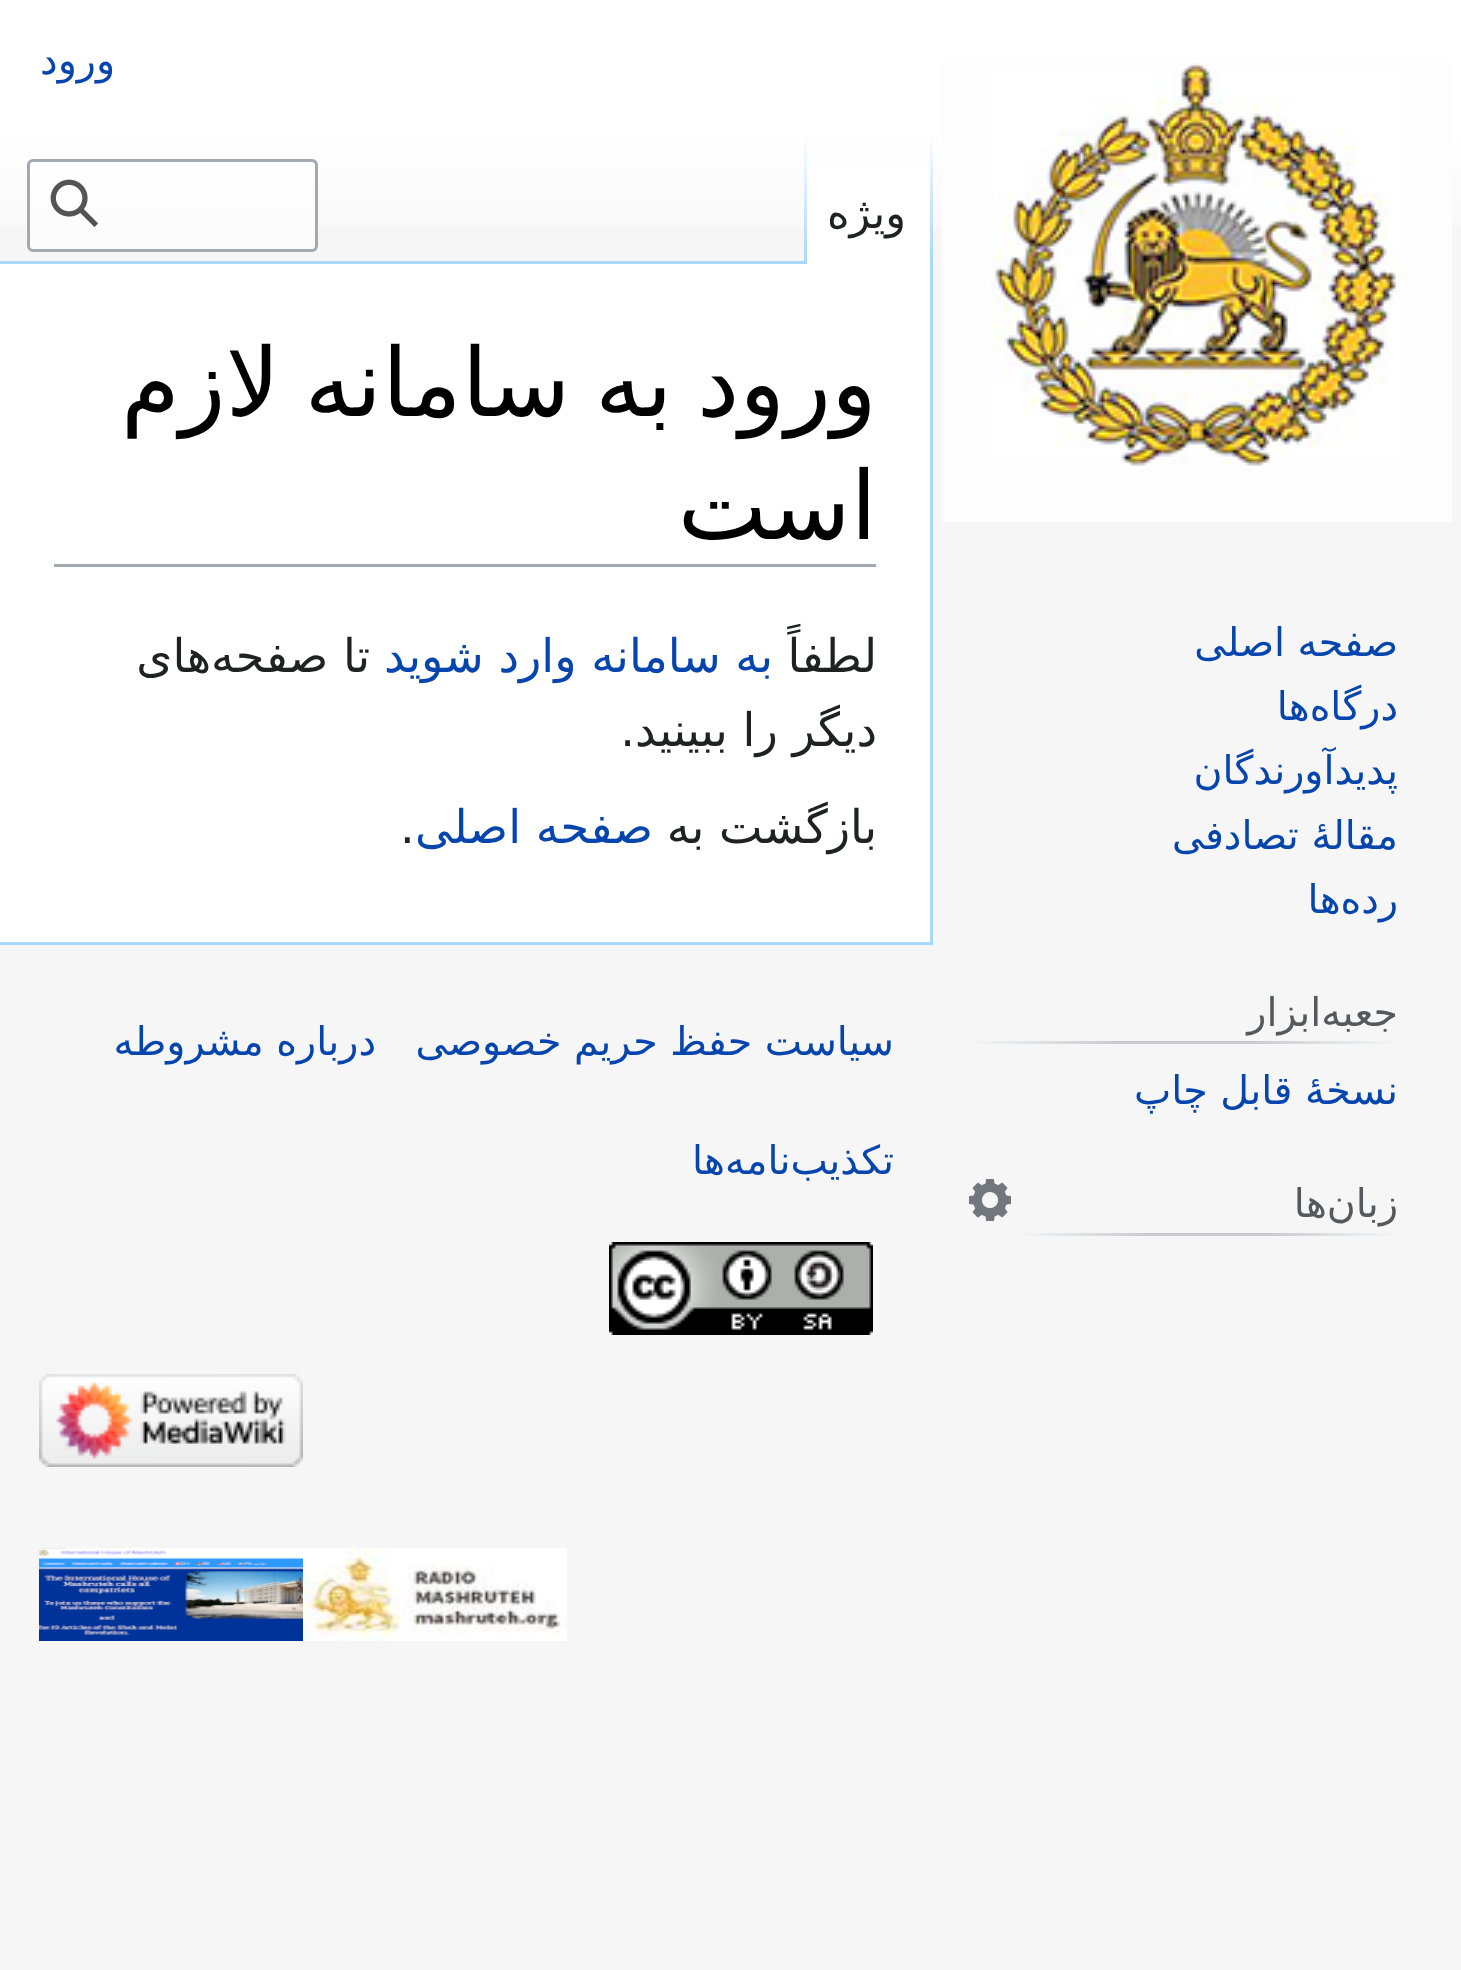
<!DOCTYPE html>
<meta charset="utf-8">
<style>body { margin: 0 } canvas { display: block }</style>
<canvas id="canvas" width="1461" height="1970"></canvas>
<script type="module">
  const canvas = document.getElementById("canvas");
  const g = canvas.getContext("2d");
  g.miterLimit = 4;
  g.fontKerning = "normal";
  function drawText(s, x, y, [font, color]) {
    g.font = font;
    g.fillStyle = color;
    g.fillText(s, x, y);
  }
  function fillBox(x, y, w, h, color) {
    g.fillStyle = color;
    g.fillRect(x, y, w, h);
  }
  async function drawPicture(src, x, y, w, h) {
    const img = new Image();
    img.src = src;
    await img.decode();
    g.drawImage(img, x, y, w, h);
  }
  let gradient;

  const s1 = ["39.6px DejaVu Sans", "#0645AD"];
  const s2 = ["43px DejaVu Sans", "#202122"];
  const s3 = ["39.6px DejaVu Sans", "#54595D"];
  const s4 = ["95px DejaVu Sans", "#000000"];
  const s5 = ["46.25px DejaVu Sans", "#202122"];
  const s6 = ["46.25px DejaVu Sans", "#0645AD"];

  fillBox(0, 0, 1461, 1970, "#F6F6F6");
  gradient = g.createLinearGradient(731, 0, 731, 264);
  gradient.addColorStop(0.5, "#FFFFFF");
  gradient.addColorStop(1, "#F6F6F6");
  g.fillStyle = gradient;
  g.fillRect(0, 0, 1461, 227);
  g.direction = "rtl";
  drawText("ورود", 115, 74, s1);
  fillBox(930, 261, 3, 684, "#A7D7F9");
  gradient = g.createLinearGradient(932, 132, 932, 264);
  gradient.addColorStop(0, "rgba(167, 215, 249, 0)");
  gradient.addColorStop(1, "#A7D7F9");
  g.fillStyle = gradient;
  g.fillRect(930, 132, 3, 132);
  fillBox(807, 169, 123, 95, "#FFFFFF");
  gradient = g.createLinearGradient(806, 132, 806, 264);
  gradient.addColorStop(0, "#FFFFFF");
  gradient.addColorStop(1, "#A7D7F9");
  g.fillStyle = gradient;
  g.fillRect(804, 132, 3, 132);
  drawText("ویژه", 906, 228, s2);
  g.fillStyle = "rgba(255, 255, 255, 0.5)";
  g.beginPath();
  g.roundRect(28.5, 160.5, 288, 90, 4.5);
  g.fill();
  g.strokeStyle = "#A2A9B1";
  g.lineWidth = 3;
  g.stroke();
  await drawPicture("pic1.png", 50, 179, 48, 48);
  await drawPicture("pic2.png", 942, 62, 510, 460);
  drawText("صفحه اصلی", 1398, 656, s1);
  drawText("درگاه‌ها", 1398, 720, s1);
  drawText("پدیدآورندگان", 1398, 784, s1);
  drawText("مقالهٔ تصادفی", 1398, 849, s1);
  drawText("رده‌ها", 1398, 913, s1);
  gradient = g.createLinearGradient(1398, 1043, 966, 1043);
  gradient.addColorStop(0, "#F6F6F6");
  gradient.addColorStop(0.33, "#C8CCD1");
  gradient.addColorStop(0.66, "#C8CCD1");
  gradient.addColorStop(1, "#F6F6F6");
  g.fillStyle = gradient;
  g.fillRect(966, 1041, 432, 3);
  drawText("جعبه‌ابزار", 1398, 1026, s3);
  drawText("نسخهٔ قابل چاپ", 1398, 1104, s1);
  gradient = g.createLinearGradient(1398, 1235, 1014, 1235);
  gradient.addColorStop(0, "#F6F6F6");
  gradient.addColorStop(0.33, "#C8CCD1");
  gradient.addColorStop(0.66, "#C8CCD1");
  gradient.addColorStop(1, "#F6F6F6");
  g.fillStyle = gradient;
  g.fillRect(1014, 1233, 384, 3);
  drawText("زبان‌ها", 1398, 1217, s3);
  await drawPicture("pic3.png", 969, 1179, 42, 42);
  fillBox(0, 264, 930, 678, "#FFFFFF");
  fillBox(0, 261, 804, 3, "#A7D7F9");
  fillBox(0, 942, 933, 3, "#A7D7F9");
  fillBox(54, 564, 822, 3, "#A2A9B1");
  g.wordSpacing = "-5.5px";
  drawText("ورود به سامانه لازم", 877, 416, s4);
  g.wordSpacing = "0px";
  drawText("است", 877, 539, s4);
  drawText("لطفاً", 877, 672, s5);
  drawText("به سامانه وارد شوید", 773, 672, s6);
  drawText("تا صفحه‌های", 370, 672, s5);
  drawText("دیگر را ببینید.", 877, 746, s5);
  drawText("بازگشت به", 877, 843, s5);
  drawText("صفحه اصلی", 653, 843, s6);
  g.direction = "ltr";
  drawText(".", 400, 843, s5);
  g.direction = "rtl";
  drawText("سیاست حفظ حریم خصوصی", 894, 1055, s1);
  drawText("درباره مشروطه", 376, 1055, s1);
  drawText("تکذیب‌نامه‌ها", 894, 1174, s1);
  await drawPicture("pic4.png", 609, 1242, 264, 93);
  await drawPicture("pic5.png", 39, 1374, 264, 93);
  await drawPicture("pic6.png", 303, 1548, 264, 93);
  await drawPicture("pic7.png", 39, 1548, 264, 93);
</script>
